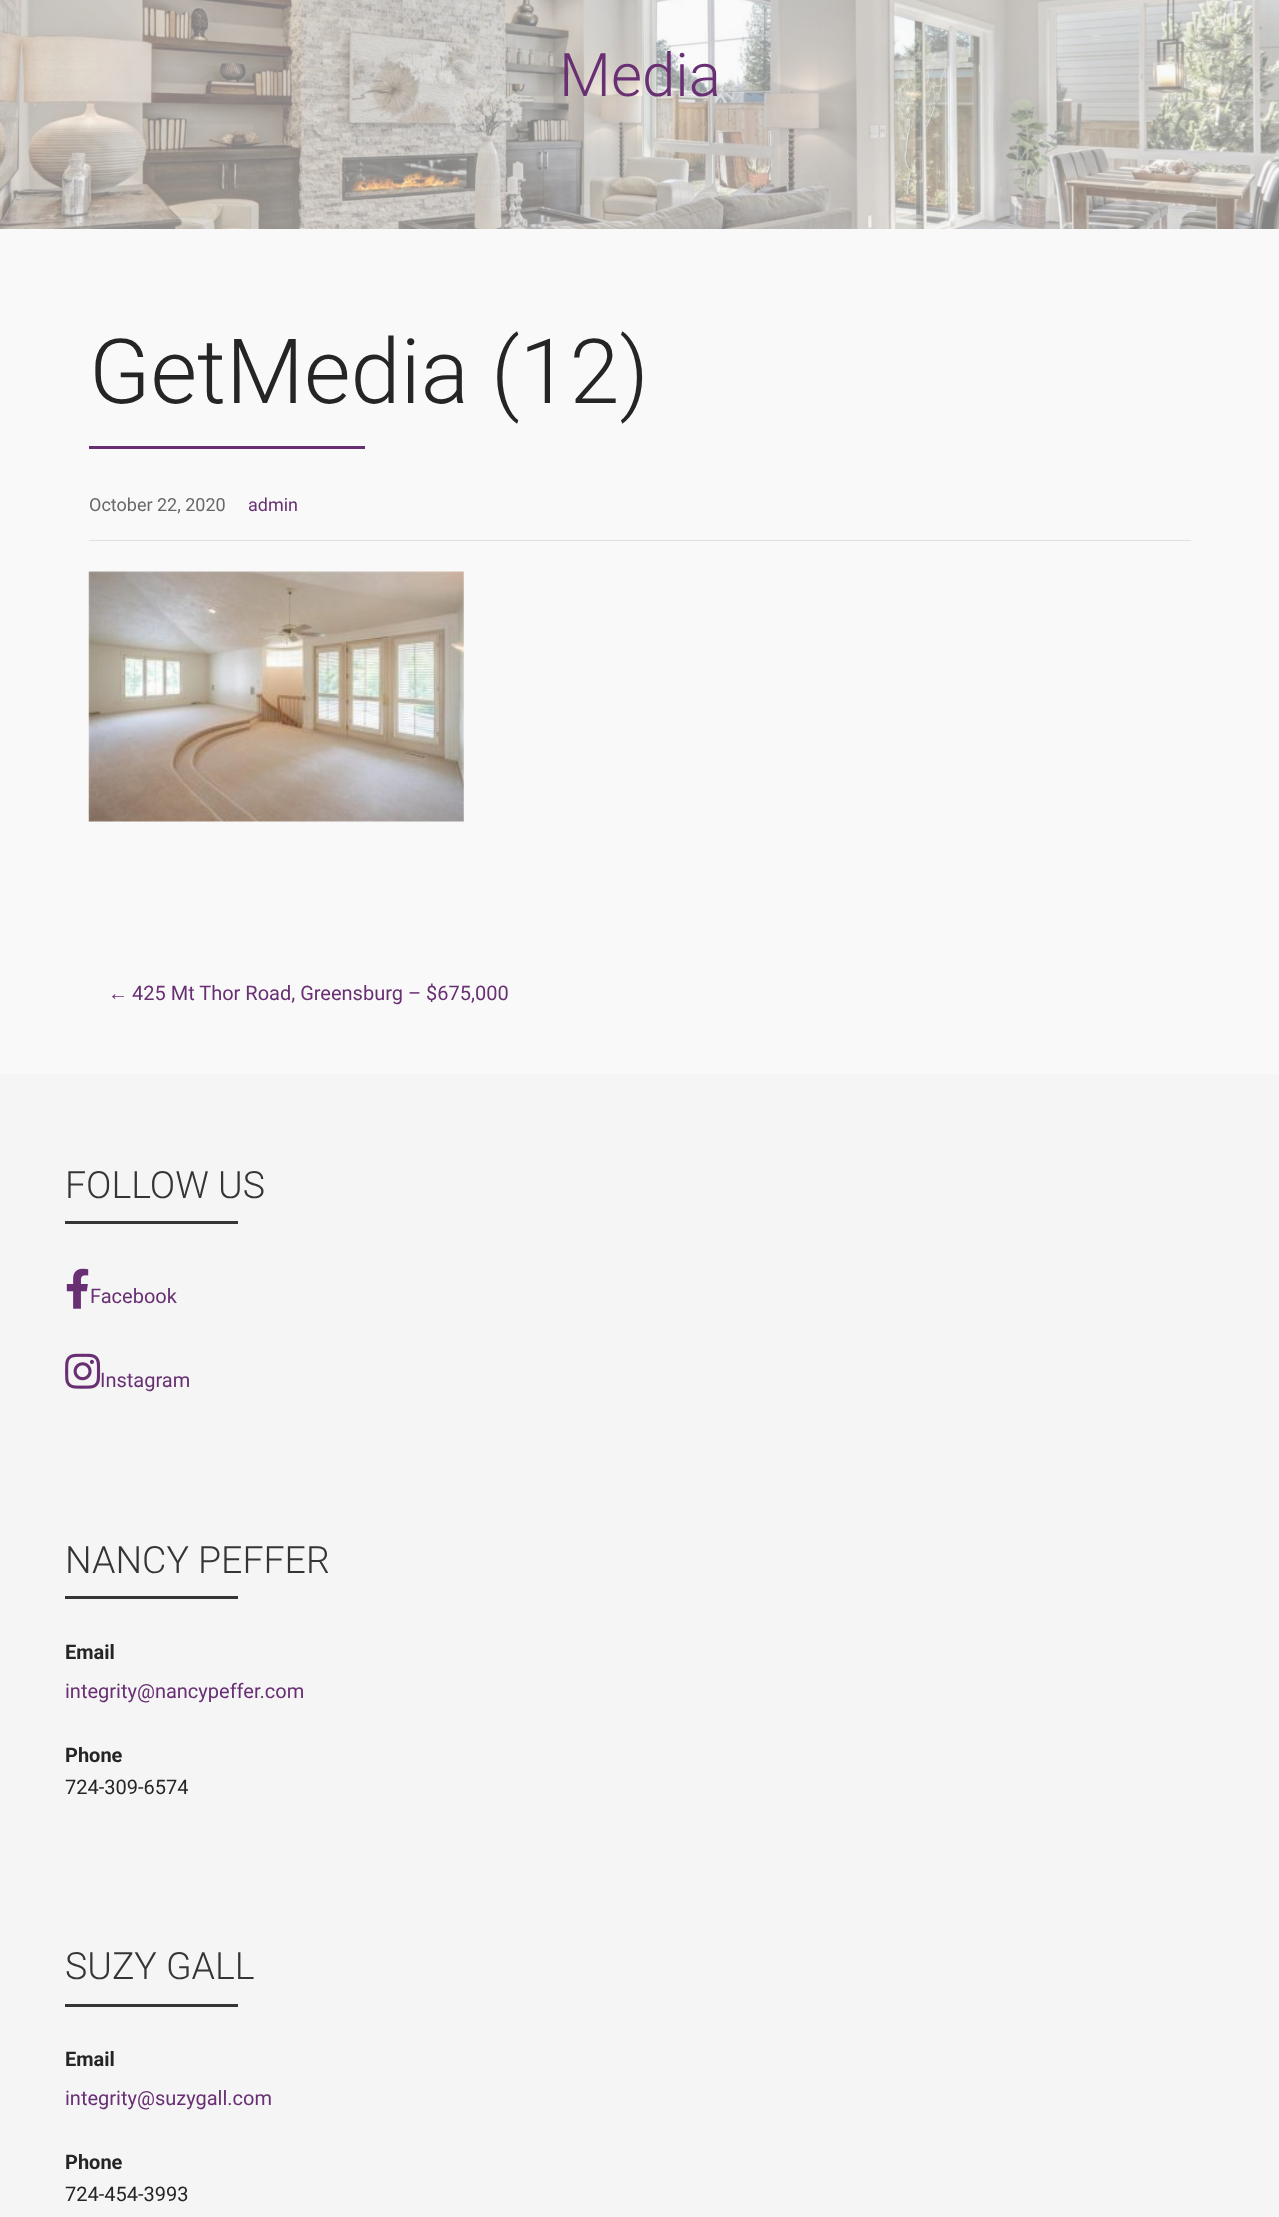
<!DOCTYPE html>
<meta charset="utf-8">
<style>body { margin: 0 } canvas { display: block }</style>
<canvas id="canvas" width="1279" height="2217"></canvas>
<script type="module">
  const canvas = document.getElementById("canvas");
  const g = canvas.getContext("2d");
  g.miterLimit = 4;
  g.fontKerning = "normal";
  function drawText(s, x, y, [font, color]) {
    g.font = font;
    g.fillStyle = color;
    g.fillText(s, x, y);
  }
  function fillBox(x, y, w, h, color) {
    g.fillStyle = color;
    g.fillRect(x, y, w, h);
  }
  async function drawPicture(src, x, y, w, h) {
    const img = new Image();
    img.src = src;
    await img.decode();
    g.drawImage(img, x, y, w, h);
  }

  const s1 = ["300 60px Roboto", "#682F73"];
  const s2 = ["300 90px Roboto", "#252525"];
  const s3 = ["18px Roboto", "#686868"];
  const s4 = ["18px Roboto", "#682F73"];
  const s5 = ["20px Liberation Sans", "#682F73"];
  const s6 = ["20px Roboto", "#682F73"];
  const s7 = ["300 37.5px Roboto", "#353535"];
  const s8 = ["bold 20px Roboto", "#252525"];
  const s9 = ["20px Roboto", "#252525"];

  fillBox(0, 0, 1279, 2217, "#F9F9F9");
  await drawPicture("pic1.png", 0, 0, 1279, 229);
  drawText("Media", 559, 96, s1);
  drawText("GetMedia (12)", 89, 403, s2);
  fillBox(89, 446, 276, 3, "#682F73");
  fillBox(89, 540, 1102, 1, "#E0E0E0");
  drawText("October 22, 2020", 89, 511, s3);
  drawText("admin", 248, 511, s4);
  await drawPicture("pic2.png", 88, 571, 376, 251);
  drawText("←", 108, 1000, s5);
  drawText("425 Mt Thor Road, Greensburg – $675,000", 132, 1000, s6);
  fillBox(0, 1074, 1279, 1143, "#F5F5F5");
  drawText("FOLLOW US", 65, 1198, s7);
  fillBox(65, 1221, 173, 3, "#353535");
  await drawPicture("pic3.png", 66, 1268, 23, 41);
  drawText("Facebook", 90, 1303, s6);
  await drawPicture("pic4.png", 65, 1353, 36, 36);
  drawText("Instagram", 100, 1387, s6);
  drawText("NANCY PEFFER", 65, 1573, s7);
  fillBox(65, 1596, 173, 3, "#353535");
  drawText("Email", 65, 1659, s8);
  drawText("integrity@nancypeffer.com", 65, 1698, s6);
  drawText("Phone", 65, 1762, s8);
  drawText("724-309-6574", 65, 1794, s9);
  drawText("SUZY GALL", 65, 1979, s7);
  fillBox(65, 2004, 173, 3, "#353535");
  drawText("Email", 65, 2066, s8);
  drawText("integrity@suzygall.com", 65, 2105, s6);
  drawText("Phone", 65, 2169, s8);
  drawText("724-454-3993", 65, 2201, s9);
</script>
